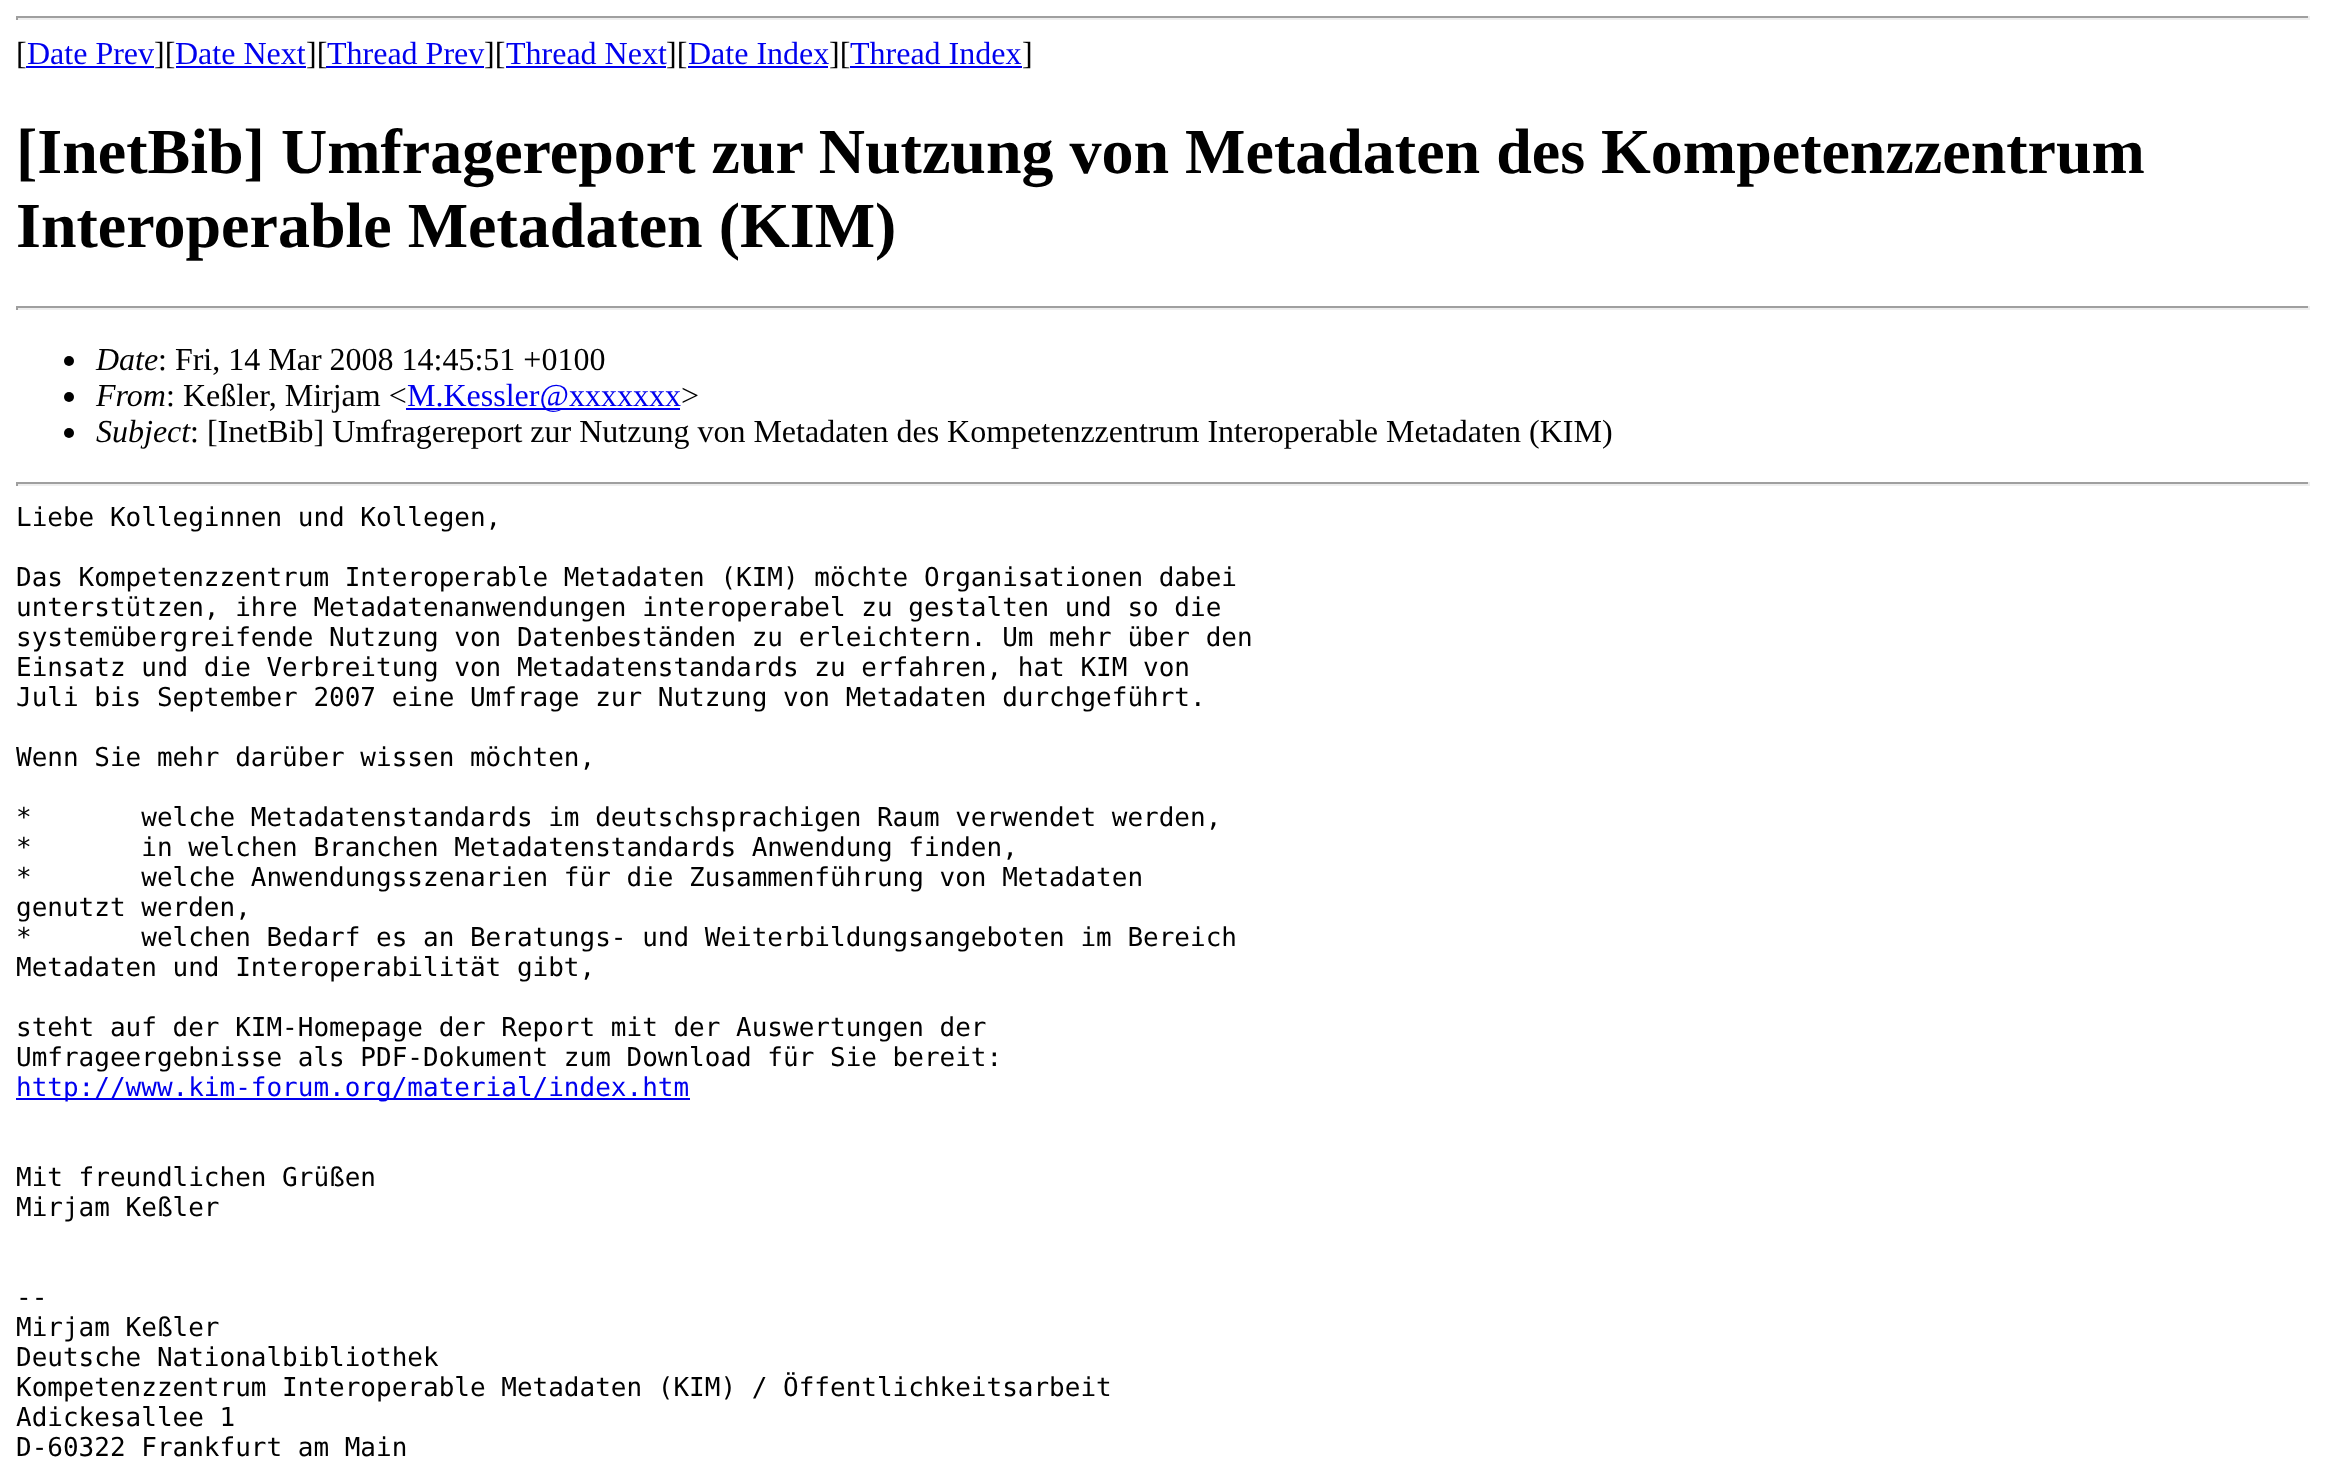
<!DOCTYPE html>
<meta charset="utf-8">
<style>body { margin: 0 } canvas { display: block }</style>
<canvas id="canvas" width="2325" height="1478"></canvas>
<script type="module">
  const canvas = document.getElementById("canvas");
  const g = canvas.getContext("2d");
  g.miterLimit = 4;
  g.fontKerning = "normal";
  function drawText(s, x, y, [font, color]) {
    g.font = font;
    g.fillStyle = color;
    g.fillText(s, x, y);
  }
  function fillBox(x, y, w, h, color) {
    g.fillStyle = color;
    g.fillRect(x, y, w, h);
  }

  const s1 = ["32px Liberation Serif", "#000000"];
  const s2 = ["32px Liberation Serif", "#0000EE"];
  const s3 = ["bold 64px Liberation Serif", "#000000"];
  const s4 = ["italic 32px Liberation Serif", "#000000"];
  const s5 = ["26px DejaVu Sans Mono", "#000000"];
  const s6 = ["26px DejaVu Sans Mono", "#0000EE"];

  fillBox(0, 0, 2325, 1478, "#FFFFFF");
  fillBox(16, 16, 2294, 2, "#9F9F9F");
  fillBox(2308, 16, 2, 4, "#EEEEEE");
  fillBox(16, 18, 2294, 2, "#EEEEEE");
  fillBox(16, 16, 2, 4, "#9F9F9F");
  drawText("[", 16, 64, s1);
  drawText("Date Prev", 27, 64, s2);
  fillBox(26, 66, 128, 2, "#0000EE");
  drawText("][", 154, 64, s1);
  drawText("Date Next", 175, 64, s2);
  fillBox(176, 66, 130, 2, "#0000EE");
  drawText("][", 306, 64, s1);
  drawText("Thread Prev", 327, 64, s2);
  fillBox(326, 66, 158, 2, "#0000EE");
  drawText("][", 484, 64, s1);
  drawText("Thread Next", 506, 64, s2);
  fillBox(506, 66, 160, 2, "#0000EE");
  drawText("][", 666, 64, s1);
  drawText("Date Index", 688, 64, s2);
  fillBox(688, 66, 140, 2, "#0000EE");
  drawText("][", 829, 64, s1);
  drawText("Thread Index", 850, 64, s2);
  fillBox(850, 66, 172, 2, "#0000EE");
  drawText("]", 1022, 64, s1);
  drawText("[InetBib] Umfragereport zur Nutzung von Metadaten des Kompetenzzentrum", 16, 173, s3);
  drawText("Interoperable Metadaten (KIM)", 16, 247, s3);
  fillBox(16, 306, 2294, 2, "#9F9F9F");
  fillBox(2308, 306, 2, 4, "#EEEEEE");
  fillBox(16, 308, 2294, 2, "#EEEEEE");
  fillBox(16, 306, 2, 4, "#9F9F9F");
  g.fillStyle = "#000000";
  g.beginPath();
  g.arc(69, 361, 5, 0, Math.PI * 2);
  g.fill();
  drawText("Date", 96, 370, s4);
  drawText(": Fri, 14 Mar 2008 14:45:51 +0100", 158, 370, s1);
  g.beginPath();
  g.arc(69, 397, 5, 0, Math.PI * 2);
  g.fill();
  drawText("From", 96, 406, s4);
  drawText(": Keßler, Mirjam <", 166, 406, s1);
  fillBox(406, 408, 274, 2, "#0000EE");
  drawText("M.Kessler@xxxxxxx", 407, 406, s2);
  drawText(">", 681, 406, s1);
  g.beginPath();
  g.arc(69, 433, 5, 0, Math.PI * 2);
  g.fill();
  drawText("Subject", 96, 442, s4);
  drawText(": [InetBib] Umfragereport zur Nutzung von Metadaten des Kompetenzzentrum Interoperable Metadaten (KIM)", 190, 442, s1);
  fillBox(16, 482, 2294, 2, "#9F9F9F");
  fillBox(2308, 482, 2, 4, "#EEEEEE");
  fillBox(16, 484, 2294, 2, "#EEEEEE");
  fillBox(16, 482, 2, 4, "#9F9F9F");
  drawText("Liebe Kolleginnen und Kollegen,", 16, 526, s5);
  drawText("Das Kompetenzzentrum Interoperable Metadaten (KIM) möchte Organisationen dabei", 16, 586, s5);
  drawText("unterstützen, ihre Metadatenanwendungen interoperabel zu gestalten und so die", 16, 616, s5);
  drawText("systemübergreifende Nutzung von Datenbeständen zu erleichtern. Um mehr über den", 16, 646, s5);
  drawText("Einsatz und die Verbreitung von Metadatenstandards zu erfahren, hat KIM von", 16, 676, s5);
  drawText("Juli bis September 2007 eine Umfrage zur Nutzung von Metadaten durchgeführt.", 16, 706, s5);
  drawText("Wenn Sie mehr darüber wissen möchten,", 16, 766, s5);
  drawText("*       welche Metadatenstandards im deutschsprachigen Raum verwendet werden,", 16, 826, s5);
  drawText("*       in welchen Branchen Metadatenstandards Anwendung finden,", 16, 856, s5);
  drawText("*       welche Anwendungsszenarien für die Zusammenführung von Metadaten", 16, 886, s5);
  drawText("genutzt werden,", 16, 916, s5);
  drawText("*       welchen Bedarf es an Beratungs- und Weiterbildungsangeboten im Bereich", 16, 946, s5);
  drawText("Metadaten und Interoperabilität gibt,", 16, 976, s5);
  drawText("steht auf der KIM-Homepage der Report mit der Auswertungen der", 16, 1036, s5);
  drawText("Umfrageergebnisse als PDF-Dokument zum Download für Sie bereit:", 16, 1066, s5);
  fillBox(16, 1098, 674, 2, "#0000EE");
  drawText("http://www.kim-forum.org/material/index.htm", 16, 1096, s6);
  drawText("Mit freundlichen Grüßen", 16, 1186, s5);
  drawText("Mirjam Keßler", 16, 1216, s5);
  drawText("--", 16, 1306, s5);
  drawText("Mirjam Keßler", 16, 1336, s5);
  drawText("Deutsche Nationalbibliothek", 16, 1366, s5);
  drawText("Kompetenzzentrum Interoperable Metadaten (KIM) / Öffentlichkeitsarbeit", 16, 1396, s5);
  drawText("Adickesallee 1", 16, 1426, s5);
  drawText("D-60322 Frankfurt am Main", 16, 1456, s5);
</script>
